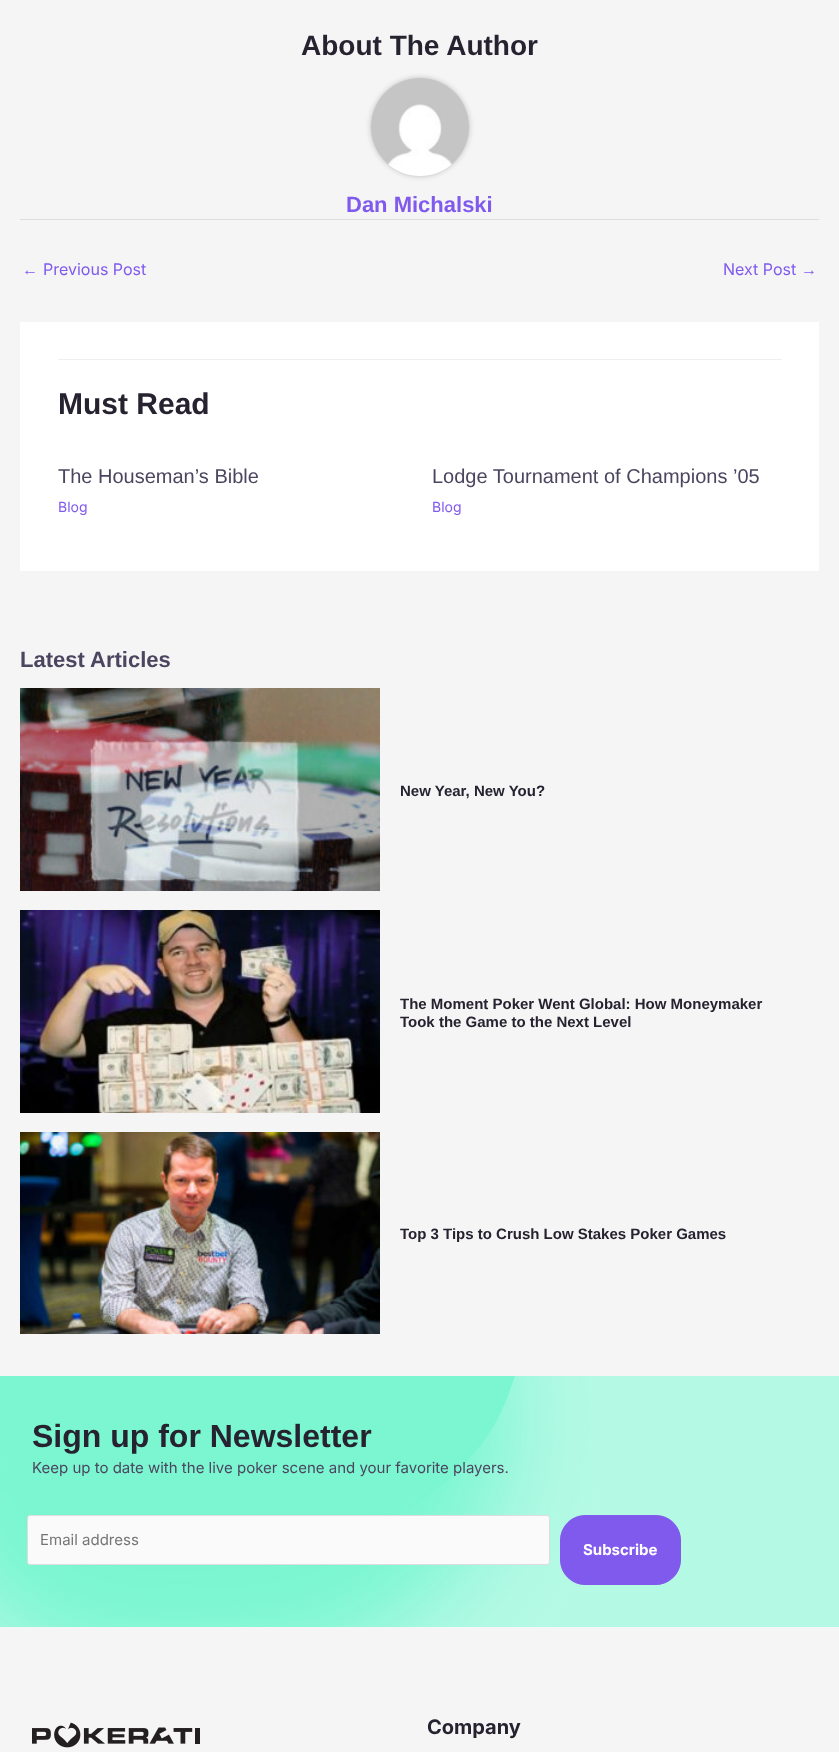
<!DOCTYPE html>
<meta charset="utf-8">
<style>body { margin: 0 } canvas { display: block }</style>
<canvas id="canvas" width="839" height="1752"></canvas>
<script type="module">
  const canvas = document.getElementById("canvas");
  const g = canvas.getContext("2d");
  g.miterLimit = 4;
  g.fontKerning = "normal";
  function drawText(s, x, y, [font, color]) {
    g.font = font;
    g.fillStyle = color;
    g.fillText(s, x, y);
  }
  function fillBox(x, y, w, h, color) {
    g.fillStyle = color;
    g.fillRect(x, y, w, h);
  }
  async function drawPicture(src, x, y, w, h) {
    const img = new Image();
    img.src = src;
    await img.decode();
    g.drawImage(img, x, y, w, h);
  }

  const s1 = ["bold 28px Liberation Sans", "#26222F"];
  const s2 = ["bold 22px Liberation Sans", "#805AED"];
  const s3 = ["16px Liberation Sans", "#805AED"];
  const s4 = ["16px Inter", "#805AED"];
  const s5 = ["bold 30px Liberation Sans", "#26222F"];
  const s6 = ["20px Liberation Sans", "#4C455F"];
  const s7 = ["14px Inter", "#805AED"];
  const s8 = ["bold 22px Liberation Sans", "#4C455F"];
  const s9 = ["bold 15px Liberation Sans", "#26222F"];
  const s10 = ["bold 32px Liberation Sans", "#26222F"];
  const s11 = ["15px Inter", "#4C455F"];
  const s12 = ["15px Inter", "#757575"];
  const s13 = ["bold 15px Inter", "#FFFFFF"];
  const s14 = ["bold 20px Inter", "#26222F"];

  fillBox(0, 0, 839, 1752, "#F5F5F5");
  drawText("About The Author", 301, 55, s1);
  g.fillStyle = "rgba(0, 0, 0, 0.15)";
  g.filter = "blur(2.5px)";
  g.beginPath();
  g.roundRect(370, 77, 100, 100, 50);
  g.fill();
  g.filter = "none";
  g.beginPath();
  g.arc(420, 127, 49.5, 0, Math.PI * 2);
  g.strokeStyle = "#DDDDDD";
  g.stroke();
  await drawPicture("pic1.png", 371, 78, 98, 98);
  drawText("Dan Michalski", 346, 212, s2);
  fillBox(20, 219, 799, 1, "#DDDDDD");
  drawText("←", 22, 275, s3);
  drawText("Previous Post", 43, 275, s4);
  drawText("Next Post", 723, 275, s4);
  drawText("→", 801, 275, s3);
  fillBox(20, 322, 799, 249, "#FFFFFF");
  fillBox(58, 359, 724, 1, "#EEEEEE");
  drawText("Must Read", 58, 414, s5);
  drawText("The Houseman’s Bible", 58, 483, s6);
  drawText("Blog", 58, 512, s7);
  drawText("Lodge Tournament of Champions ’05", 432, 483, s6);
  drawText("Blog", 432, 512, s7);
  drawText("Latest Articles", 20, 667, s8);
  await drawPicture("pic2.png", 20, 688, 360, 203);
  drawText("New Year, New You?", 400, 796, s9);
  await drawPicture("pic3.png", 20, 910, 360, 203);
  drawText("The Moment Poker Went Global: How Moneymaker", 400, 1009, s9);
  drawText("Took the Game to the Next Level", 400, 1027, s9);
  await drawPicture("pic4.png", 20, 1132, 360, 202);
  drawText("Top 3 Tips to Crush Low Stakes Poker Games", 400, 1239, s9);
  await drawPicture("pic5.png", 0, 1376, 839, 251);
  drawText("Sign up for Newsletter", 32, 1447, s10);
  drawText("Keep up to date with the live poker scene and your favorite players.", 32, 1473, s11);
  g.fillStyle = "#FAFAFA";
  g.beginPath();
  g.roundRect(27.5, 1515.5, 522, 49, 2.5);
  g.fill();
  g.stroke();
  drawText("Email address", 40, 1545, s12);
  g.fillStyle = "#805AED";
  g.beginPath();
  g.roundRect(560.5, 1515.5, 120, 69, 24.5);
  g.fill();
  g.strokeStyle = "#805AED";
  g.stroke();
  drawText("Subscribe", 583, 1555, s13);
  await drawPicture("pic6.png", 32, 1722, 168, 26);
  drawText("Company", 427, 1734, s14);
</script>
